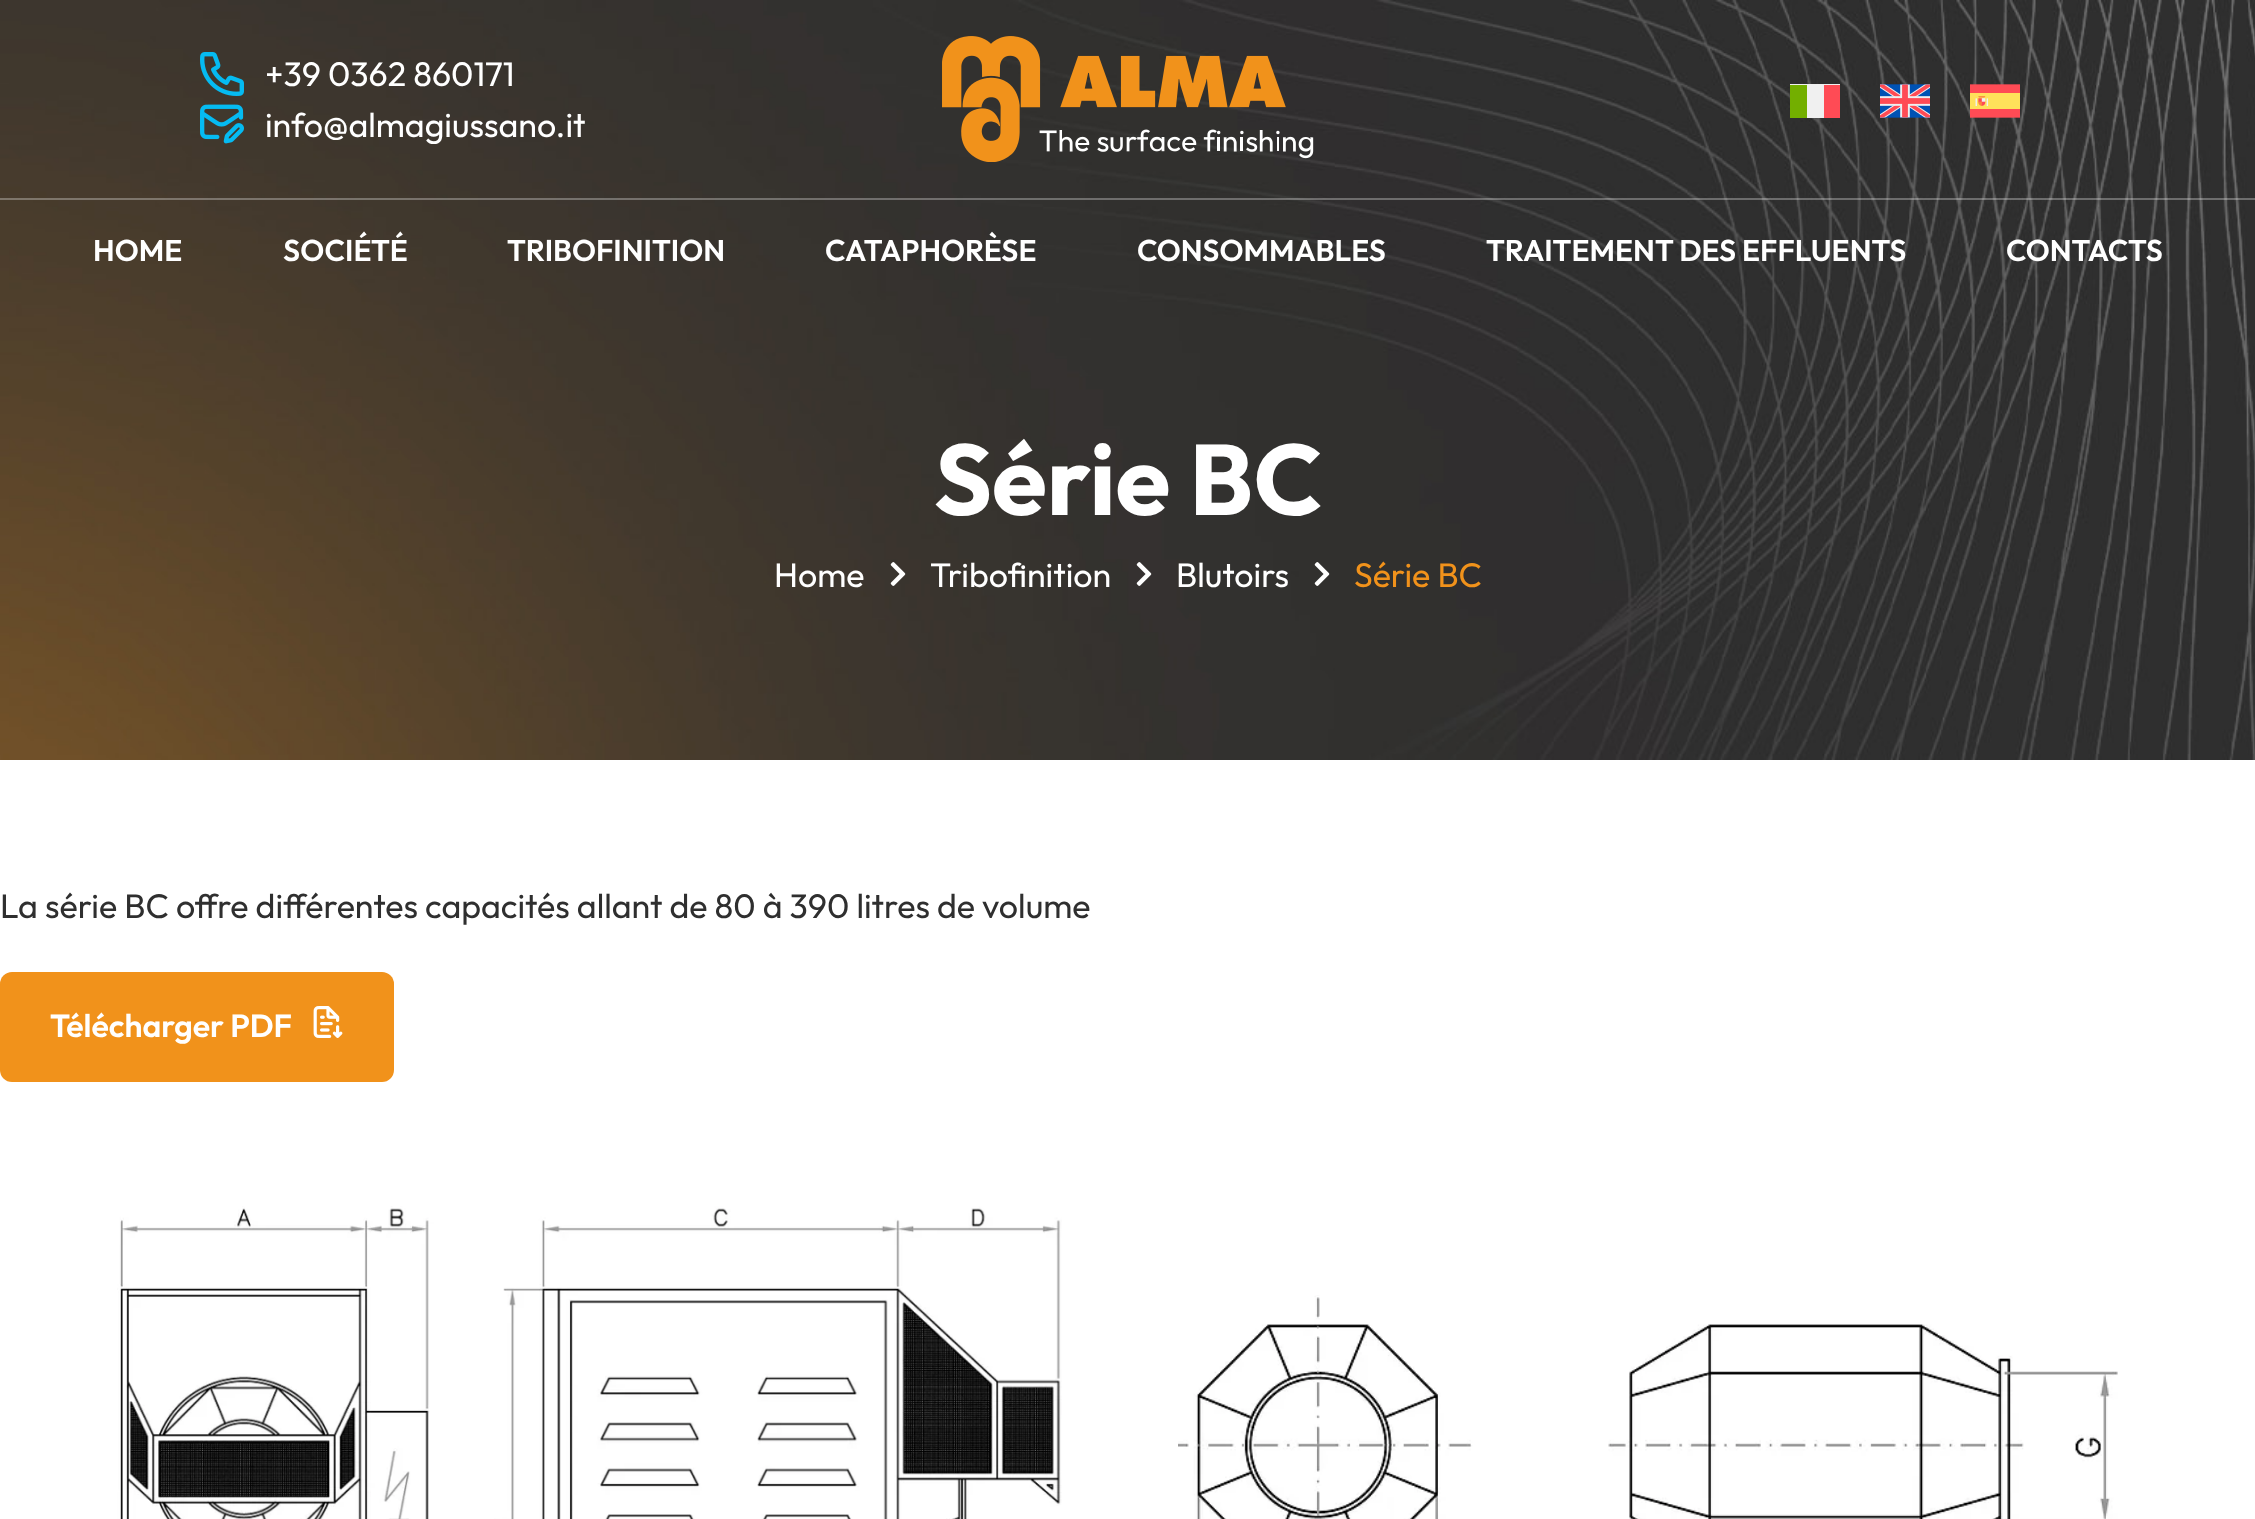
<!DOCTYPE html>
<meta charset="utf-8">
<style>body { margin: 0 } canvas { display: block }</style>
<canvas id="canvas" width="2255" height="1519"></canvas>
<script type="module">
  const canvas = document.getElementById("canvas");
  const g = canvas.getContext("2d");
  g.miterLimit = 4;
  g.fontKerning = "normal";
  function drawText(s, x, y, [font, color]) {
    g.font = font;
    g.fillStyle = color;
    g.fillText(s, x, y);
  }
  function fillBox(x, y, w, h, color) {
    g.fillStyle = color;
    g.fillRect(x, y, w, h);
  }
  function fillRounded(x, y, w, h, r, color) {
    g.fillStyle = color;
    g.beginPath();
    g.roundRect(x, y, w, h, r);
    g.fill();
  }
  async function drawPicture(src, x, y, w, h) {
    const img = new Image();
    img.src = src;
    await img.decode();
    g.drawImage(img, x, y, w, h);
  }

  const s1 = ["34px Outfit", "#FFFFFF"];
  const s2 = ["600 30px Outfit", "#FFFFFF"];
  const s3 = ["bold 100px Outfit", "#FFFFFF"];
  const s4 = ["34px Outfit", "#F1921B"];
  const s5 = ["34px Outfit", "#2F2F2F"];
  const s6 = ["600 32px Outfit", "#FFFFFF"];

  fillBox(0, 0, 2255, 1519, "#FFFFFF");
  await drawPicture("pic6.png", 0, 0, 2255, 760);
  fillBox(0, 198, 2255, 2, "rgba(255, 255, 255, 0.3)");
  await drawPicture("pic1.png", 200, 52, 44, 44);
  drawText("+39 0362 860171", 265, 86, s1);
  await drawPicture("pic2.png", 200, 104, 44, 40);
  drawText("info@almagiussano.it", 265, 137, s1);
  await drawPicture("pic3.png", 942, 36, 372, 126);
  fillBox(1790, 84, 50, 34, "#F0F0F0");
  fillBox(1790, 85, 17, 33, "#73AF00");
  fillBox(1824, 85, 16, 33, "#FF4B55");
  await drawPicture("pic4.png", 1880, 84, 50, 34);
  await drawPicture("pic5.png", 1970, 84, 50, 34);
  drawText("HOME", 93, 261, s2);
  drawText("SOCIÉTÉ", 283, 261, s2);
  drawText("TRIBOFINITION", 507, 261, s2);
  drawText("CATAPHORÈSE", 825, 261, s2);
  drawText("CONSOMMABLES", 1137, 261, s2);
  drawText("TRAITEMENT DES EFFLUENTS", 1486, 261, s2);
  drawText("CONTACTS", 2006, 261, s2);
  drawText("Série BC", 934, 515, s3);
  drawText("Home", 774, 587, s1);
  await drawPicture("pic7.png", 890, 562, 16, 24);
  drawText("Tribofinition", 930, 587, s1);
  await drawPicture("pic8.png", 1136, 562, 16, 24);
  drawText("Blutoirs", 1176, 587, s1);
  await drawPicture("pic9.png", 1314, 562, 16, 24);
  drawText("Série BC", 1354, 587, s4);
  drawText("La série BC offre différentes capacités allant de 80 à 390 litres de volume", 0, 918, s5);
  fillRounded(0, 972, 394, 110, 12, "#F1921B");
  drawText("Télécharger PDF", 50, 1037, s6);
  await drawPicture("pic10.png", 313, 1006, 30, 32);
  await drawPicture("pic11.png", 117, 1206, 945, 313);
  await drawPicture("pic12.png", 1178, 1295, 940, 224);
</script>
